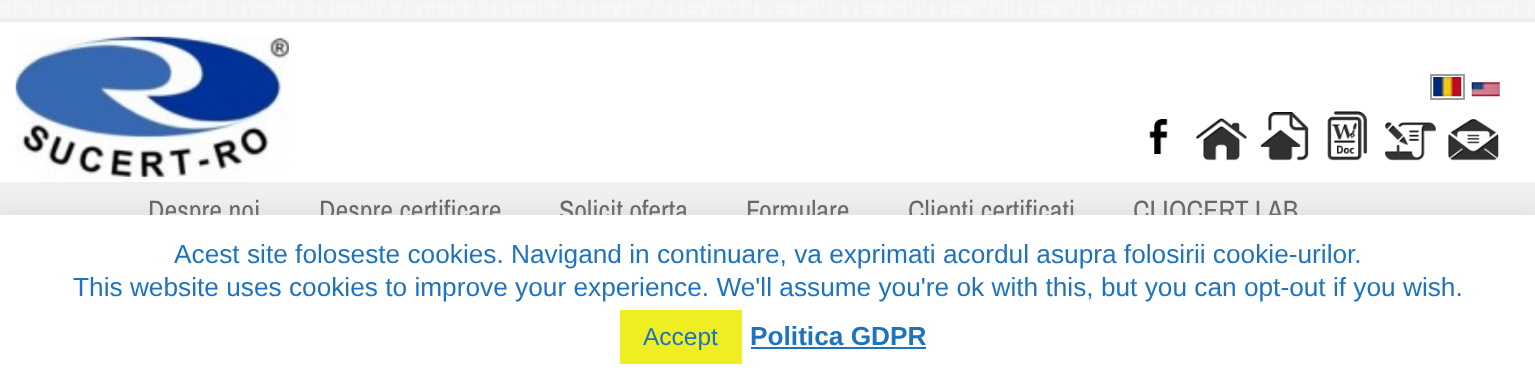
<!DOCTYPE html>
<meta charset="utf-8">
<style>body { margin: 0 } canvas { display: block }</style>
<canvas id="canvas" width="1535" height="385"></canvas>
<script type="module">
  const canvas = document.getElementById("canvas");
  const g = canvas.getContext("2d");
  g.miterLimit = 4;
  g.fontKerning = "normal";
  function drawText(s, x, y, [font, color]) {
    g.font = font;
    g.fillStyle = color;
    g.fillText(s, x, y);
  }
  function fillBox(x, y, w, h, color) {
    g.fillStyle = color;
    g.fillRect(x, y, w, h);
  }
  async function drawPicture(src, x, y, w, h) {
    const img = new Image();
    img.src = src;
    await img.decode();
    g.drawImage(img, x, y, w, h);
  }

  const s1 = ["28px Archivo Narrow", "#666666"];
  const s2 = ["26.25px Liberation Sans", "#1E73BE"];
  const s3 = ["24.5px Liberation Sans", "#1E73BE"];
  const s4 = ["bold 26.25px Liberation Sans", "#1E73BE"];

  fillBox(0, 0, 1535, 385, "#FFFFFF");
  await drawPicture("pic1.png", 0, 0, 1535, 18);
  fillBox(0, 18, 1535, 4, "#EFEFEF");
  await drawPicture("pic2.png", 15, 36, 274, 141);
  g.strokeStyle = "#9C9C9C";
  g.lineWidth = 2;
  g.strokeRect(1431, 75, 33, 24);
  await drawPicture("pic3.png", 1433, 77, 29, 20);
  await drawPicture("pic4.png", 1471, 82, 29, 15);
  await drawPicture("pic5.png", 1149, 119, 19, 35);
  await drawPicture("pic6.png", 1196, 118, 51, 43);
  await drawPicture("pic7.png", 1260, 112, 49, 49);
  await drawPicture("pic8.png", 1327, 111, 41, 50);
  await drawPicture("pic9.png", 1385, 122, 51, 39);
  await drawPicture("pic10.png", 1448, 119, 51, 42);
  fillBox(0, 182, 1535, 33, "#EFEFEF");
  drawText("Despre noi", 148, 220, s1);
  drawText("Despre certificare", 319, 220, s1);
  drawText("Solicit oferta", 559, 220, s1);
  drawText("Formulare", 746, 220, s1);
  drawText("Clienți certificați", 908, 220, s1);
  drawText("CLIOCERT LAB", 1133, 220, s1);
  g.fillStyle = "rgba(172, 171, 171, 0.3)";
  g.filter = "blur(9px)";
  g.beginPath();
  g.rect(0, 214, 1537, 169);
  g.fill();
  g.filter = "none";
  fillBox(0, 215, 1535, 170, "#FFFFFF");
  drawText("Acest site foloseste cookies. Navigand in continuare, va exprimati acordul asupra folosirii cookie-urilor.", 174, 263, s2);
  drawText("This website uses cookies to improve your experience. We'll assume you're ok with this, but you can opt-out if you wish.", 73, 296, s2);
  fillBox(620, 310, 122, 54, "#EEEE22");
  drawText("Accept", 643, 345, s3);
  drawText("Politica GDPR", 750, 345, s4);
  fillBox(751, 347, 175, 2, "#1E73BE");
</script>
